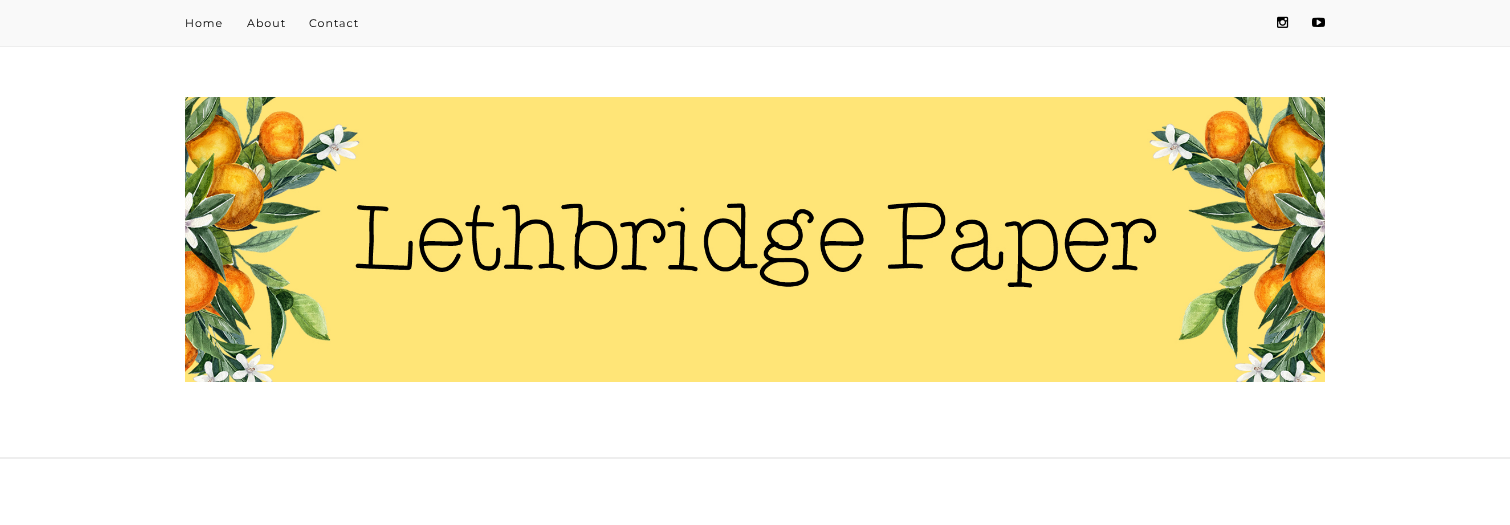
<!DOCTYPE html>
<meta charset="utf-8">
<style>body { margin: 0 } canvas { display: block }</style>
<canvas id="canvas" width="1510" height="525"></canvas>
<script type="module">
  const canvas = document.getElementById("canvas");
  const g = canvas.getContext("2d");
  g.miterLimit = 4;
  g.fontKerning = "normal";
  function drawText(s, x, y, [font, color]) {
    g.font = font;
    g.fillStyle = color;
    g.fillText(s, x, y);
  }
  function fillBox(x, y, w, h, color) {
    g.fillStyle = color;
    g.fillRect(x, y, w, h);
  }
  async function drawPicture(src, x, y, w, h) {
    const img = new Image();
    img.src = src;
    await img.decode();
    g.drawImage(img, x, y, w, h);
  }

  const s1 = ["11px Montserrat", "#000000"];

  fillBox(0, 0, 1510, 525, "#FFFFFF");
  fillBox(0, 0, 1510, 46, "#F9F9F9");
  fillBox(0, 46, 1510, 1, "#EEEEEE");
  g.letterSpacing = "1px";
  drawText("Home", 185, 27, s1);
  drawText("About", 247, 27, s1);
  drawText("Contact", 309, 27, s1);
  await drawPicture("pic1.png", 1277, 16, 12, 12);
  await drawPicture("pic2.png", 1312, 17, 13, 10);
  await drawPicture("pic3.png", 185, 97, 1140, 285);
  fillBox(0, 457, 1510, 2, "#EEEEEE");
</script>
